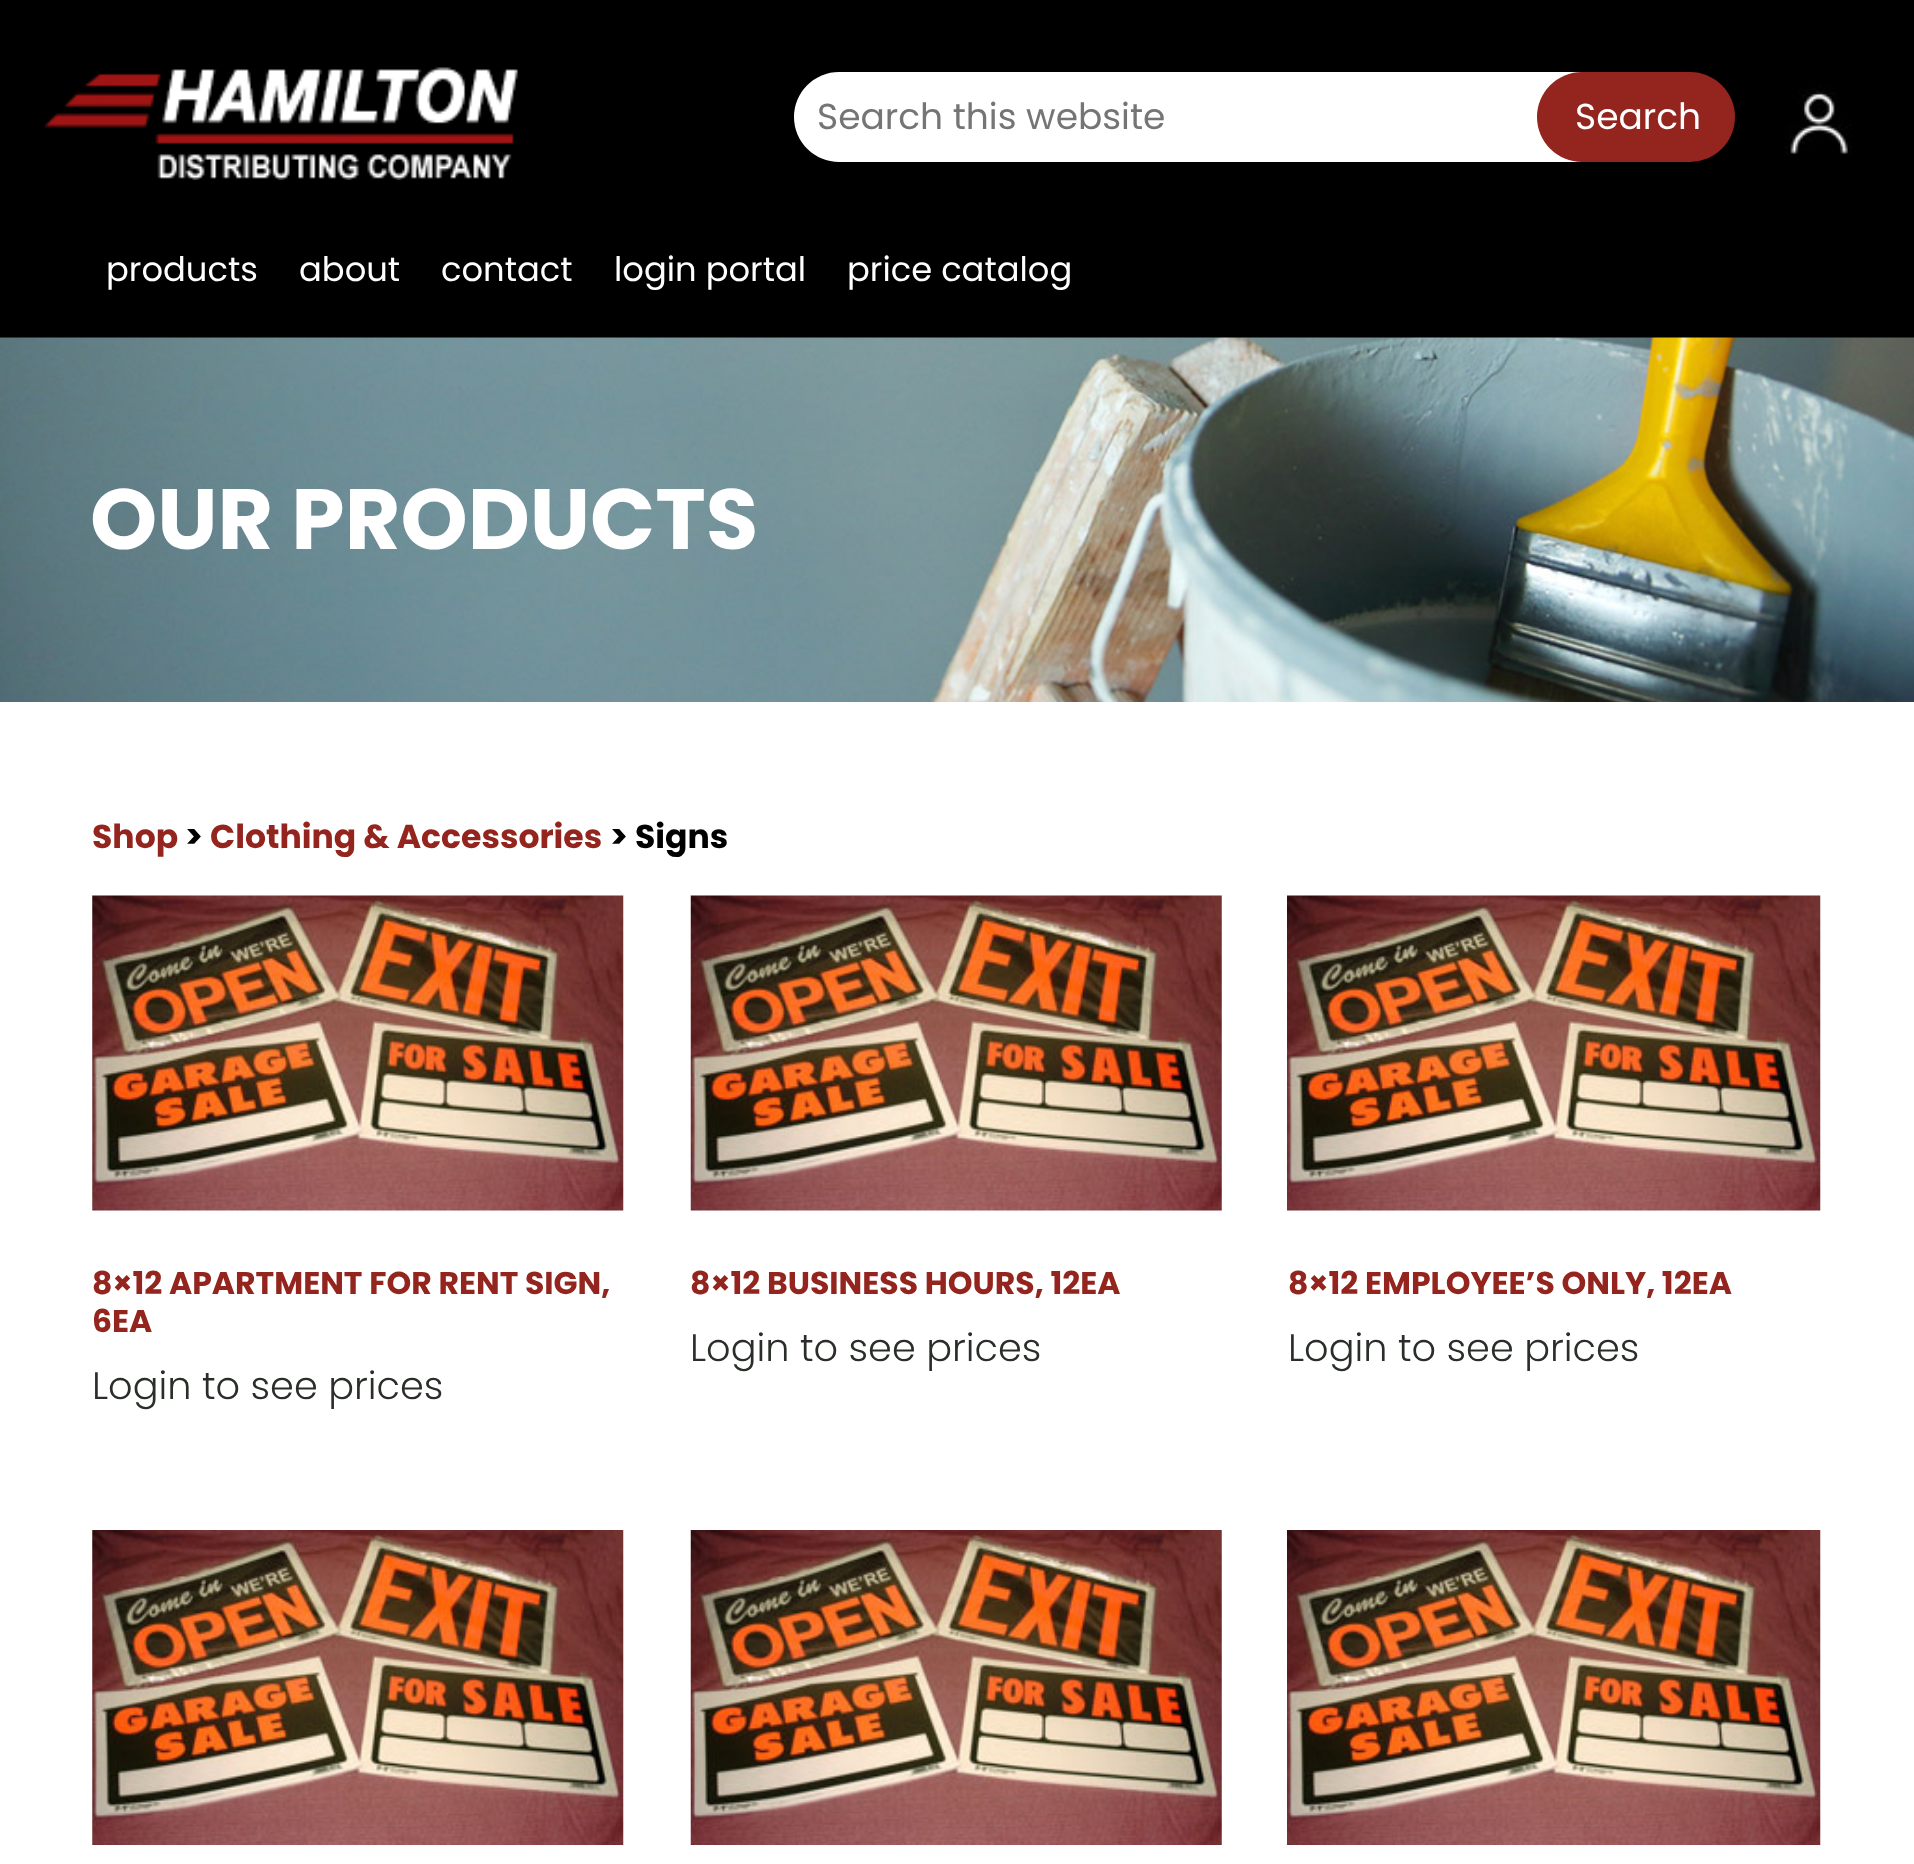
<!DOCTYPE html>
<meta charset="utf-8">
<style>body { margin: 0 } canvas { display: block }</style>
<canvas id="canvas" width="1914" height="1864"></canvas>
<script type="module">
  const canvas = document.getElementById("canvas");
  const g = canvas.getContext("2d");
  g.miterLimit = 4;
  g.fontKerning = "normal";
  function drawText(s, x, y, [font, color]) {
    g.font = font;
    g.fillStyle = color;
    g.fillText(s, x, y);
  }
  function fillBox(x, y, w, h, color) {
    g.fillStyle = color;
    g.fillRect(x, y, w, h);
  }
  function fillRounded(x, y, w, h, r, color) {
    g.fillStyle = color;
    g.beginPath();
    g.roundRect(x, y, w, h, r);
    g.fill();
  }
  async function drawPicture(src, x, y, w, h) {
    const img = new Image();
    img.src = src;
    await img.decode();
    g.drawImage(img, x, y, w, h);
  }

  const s1 = ["36px Poppins", "#757575"];
  const s2 = ["36px Poppins", "#FFFFFF"];
  const s3 = ["33.75px Poppins", "#FFFFFF"];
  const s4 = ["bold 85.5px Poppins", "#FFFFFF"];
  const s5 = ["bold 33.1px Poppins", "#93251E"];
  const s6 = ["bold 33.1px Poppins", "#000000"];
  const s7 = ["bold 31.5px Poppins", "#93251E"];
  const s8 = ["300 38.25px Poppins", "#292E29"];

  fillBox(0, 0, 1914, 1864, "#FFFFFF");
  fillBox(0, 0, 1914, 338, "#000000");
  await drawPicture("pic1.png", 45, 67, 473, 113);
  fillRounded(794, 72, 833, 90, 45, "#FFFFFF");
  drawText("Search this website", 817, 129, s1);
  fillRounded(1537, 72, 198, 90, 45, "#93251E");
  drawText("Search", 1575, 129, s2);
  await drawPicture("pic2.png", 1785, 86, 67, 69);
  drawText("products", 106, 281, s3);
  drawText("about", 299, 281, s3);
  drawText("contact", 441, 281, s3);
  drawText("login portal", 614, 281, s3);
  drawText("price catalog", 847, 281, s3);
  await drawPicture("pic3.png", 0, 337, 1914, 365);
  drawText("OUR PRODUCTS", 90, 549, s4);
  drawText("Shop", 92, 848, s5);
  drawText(">", 185, 848, s6);
  drawText("Clothing & Accessories", 210, 848, s5);
  drawText("> Signs", 610, 848, s6);
  await drawPicture("pic4.png", 92, 895, 532, 316);
  drawText("8×12 APARTMENT FOR RENT SIGN,", 92, 1294, s7);
  drawText("6EA", 92, 1332, s7);
  drawText("Login to see prices", 92, 1399, s8);
  await drawPicture("pic5.png", 690, 895, 532, 316);
  drawText("8×12 BUSINESS HOURS, 12EA", 690, 1294, s7);
  drawText("Login to see prices", 690, 1361, s8);
  await drawPicture("pic6.png", 1287, 895, 534, 316);
  drawText("8×12 EMPLOYEE’S ONLY, 12EA", 1288, 1294, s7);
  drawText("Login to see prices", 1288, 1361, s8);
  await drawPicture("pic7.png", 92, 1530, 532, 315);
  await drawPicture("pic8.png", 690, 1530, 532, 315);
  await drawPicture("pic9.png", 1287, 1530, 534, 315);
</script>
